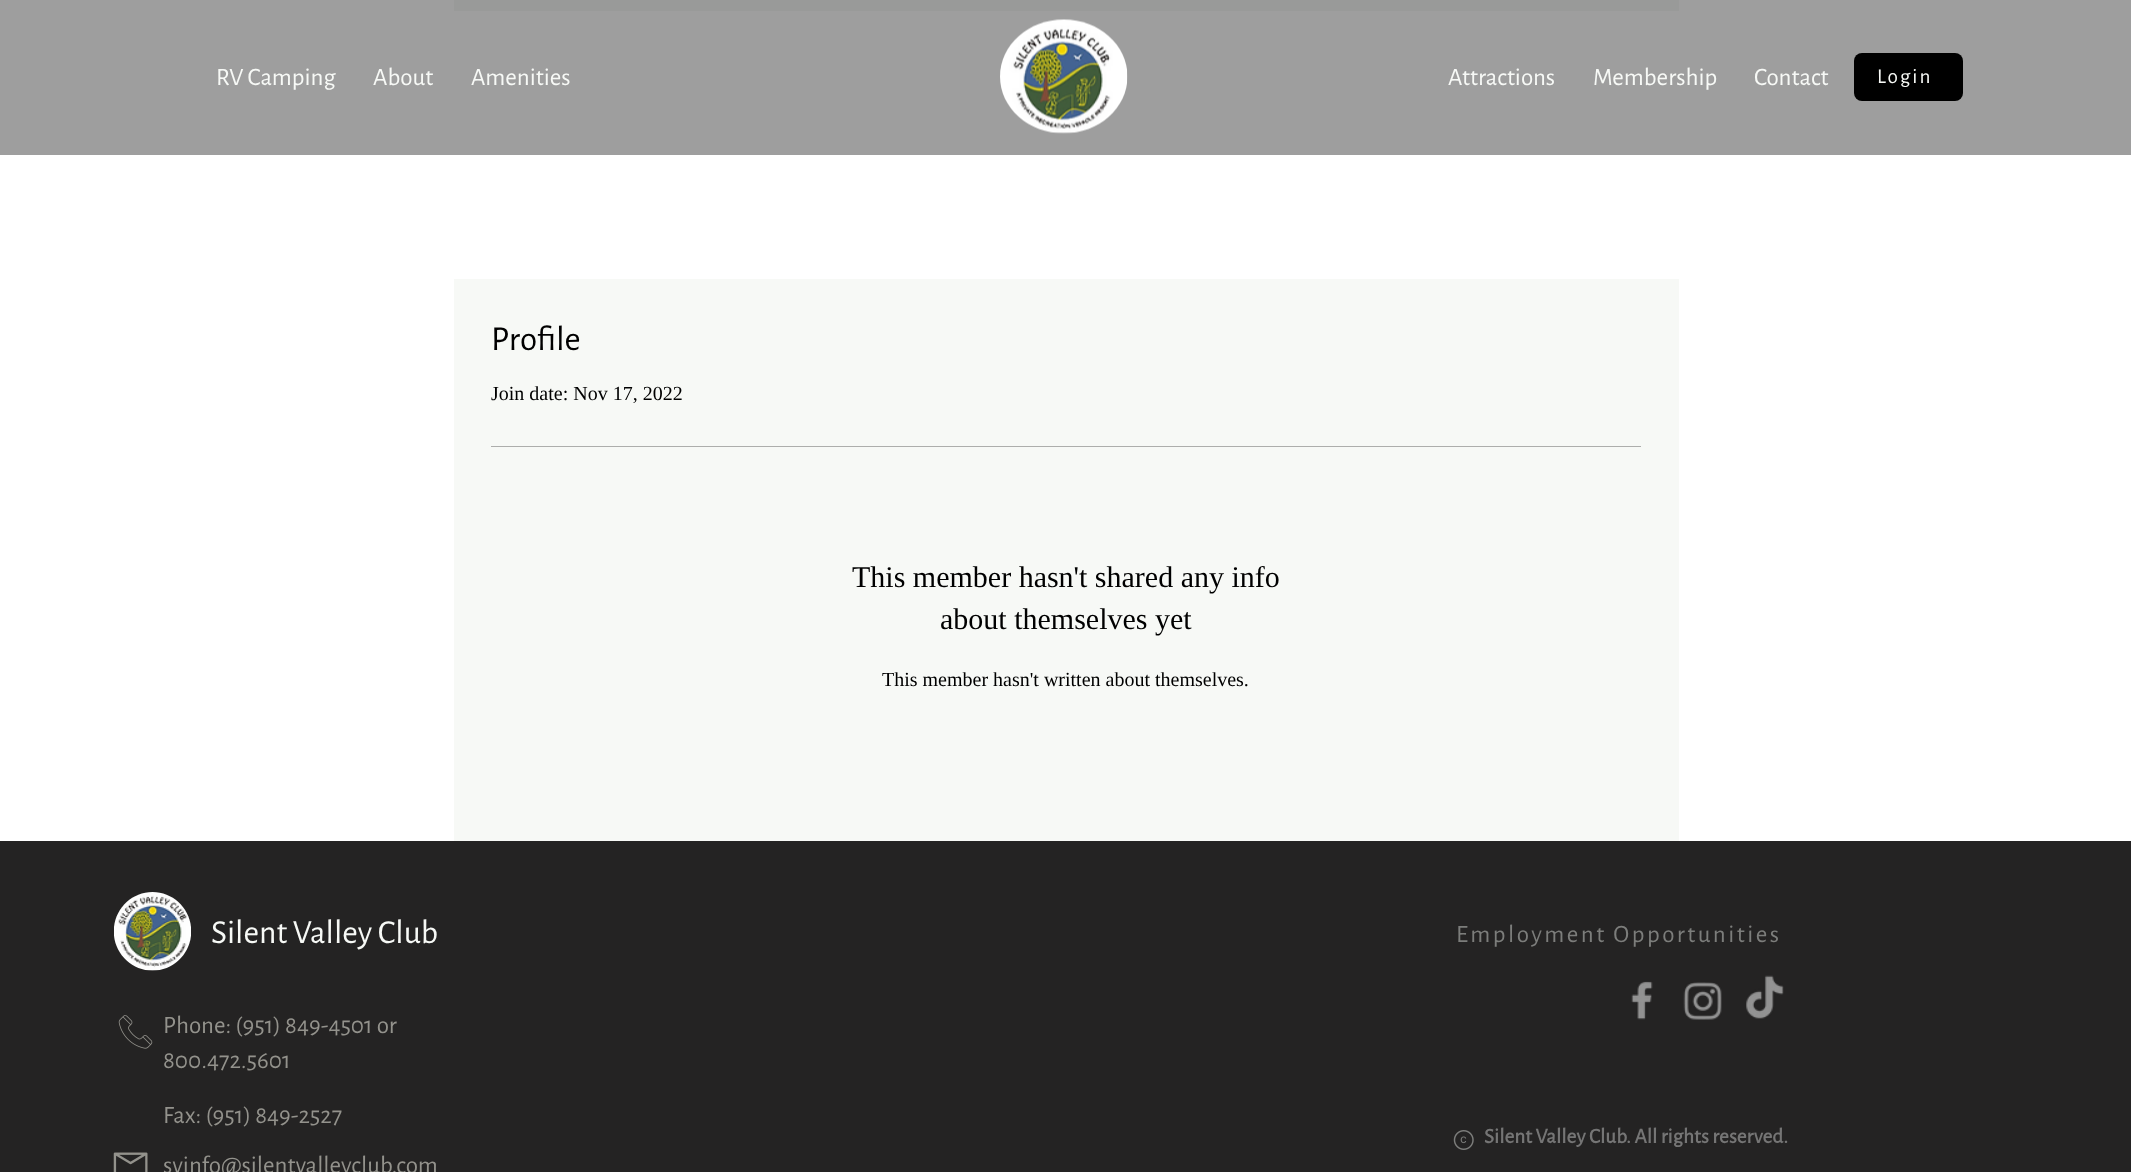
<!DOCTYPE html>
<meta charset="utf-8">
<style>body { margin: 0 } canvas { display: block }</style>
<canvas id="canvas" width="2131" height="1172"></canvas>
<script type="module">
  const canvas = document.getElementById("canvas");
  const g = canvas.getContext("2d");
  g.miterLimit = 4;
  g.fontKerning = "normal";
  function drawText(s, x, y, [font, color]) {
    g.font = font;
    g.fillStyle = color;
    g.fillText(s, x, y);
  }
  function fillBox(x, y, w, h, color) {
    g.fillStyle = color;
    g.fillRect(x, y, w, h);
  }
  function fillRounded(x, y, w, h, r, color) {
    g.fillStyle = color;
    g.beginPath();
    g.roundRect(x, y, w, h, r);
    g.fill();
  }
  async function drawPicture(src, x, y, w, h) {
    const img = new Image();
    img.src = src;
    await img.decode();
    g.drawImage(img, x, y, w, h);
  }

  const s1 = ["25px Alegreya Sans", "#F7F9F6"];
  const s2 = ["21.25px Alegreya Sans", "#F7F9F6"];
  const s3 = ["35px Alegreya Sans", "#000000"];
  const s4 = ["20px Liberation Serif", "#000000"];
  const s5 = ["30px Liberation Serif", "#000000"];
  const s6 = ["33.75px Alegreya Sans", "#F7F9F6"];
  const s7 = ["25px Alegreya Sans", "#93928C"];
  const s8 = ["25px Alegreya Sans", "#7C7D7B"];
  const s9 = ["bold 21.25px Alegreya Sans", "#757575"];

  fillBox(0, 0, 2131, 1172, "#FFFFFF");
  fillBox(0, 0, 2131, 155, "#9E9E9E");
  fillBox(454, 0, 1225, 11, "#999A99");
  drawText("RV Camping", 216, 85, s1);
  drawText("About", 373, 85, s1);
  drawText("Amenities", 471, 85, s1);
  await drawPicture("pic1.png", 1000, 19, 128, 115);
  drawText("Attractions", 1448, 85, s1);
  drawText("Membership", 1593, 85, s1);
  drawText("Contact", 1754, 85, s1);
  fillRounded(1854, 53, 109, 48, 8, "#000000");
  g.letterSpacing = "2px";
  drawText("Login", 1877, 83, s2);
  fillBox(454, 279, 1225, 562, "#F7F9F6");
  g.letterSpacing = "0px";
  drawText("Profile", 491, 350, s3);
  drawText("Join date: Nov 17, 2022", 491, 400, s4);
  fillBox(491, 446, 1150, 1, "#ADAEAC");
  drawText("This member hasn't shared any info", 852, 587, s5);
  drawText("about themselves yet", 940, 629, s5);
  drawText("This member hasn't written about themselves.", 882, 686, s4);
  fillBox(0, 841, 2131, 331, "#242323");
  await drawPicture("pic2.png", 114, 892, 77, 79);
  drawText("Silent Valley Club", 211, 943, s6);
  await drawPicture("pic3.png", 118, 1015, 35, 34);
  drawText("Phone: (951) 849-4501 or", 163, 1033, s7);
  drawText("800.472.5601", 163, 1068, s7);
  drawText("Fax: (951) 849-2527", 163, 1123, s7);
  await drawPicture("pic4.png", 113, 1152, 35, 20);
  drawText("svinfo@silentvalleyclub.com", 163, 1173, s7);
  g.letterSpacing = "2.5px";
  drawText("Employment Opportunities", 1456, 942, s8);
  await drawPicture("pic5.png", 1631, 981, 22, 39);
  await drawPicture("pic6.png", 1683, 982, 39, 38);
  await drawPicture("pic7.png", 1746, 975, 38, 44);
  await drawPicture("pic8.png", 1453, 1130, 21, 20);
  g.letterSpacing = "0px";
  drawText("Silent Valley Club. All rights reserved.", 1484, 1143, s9);
</script>
